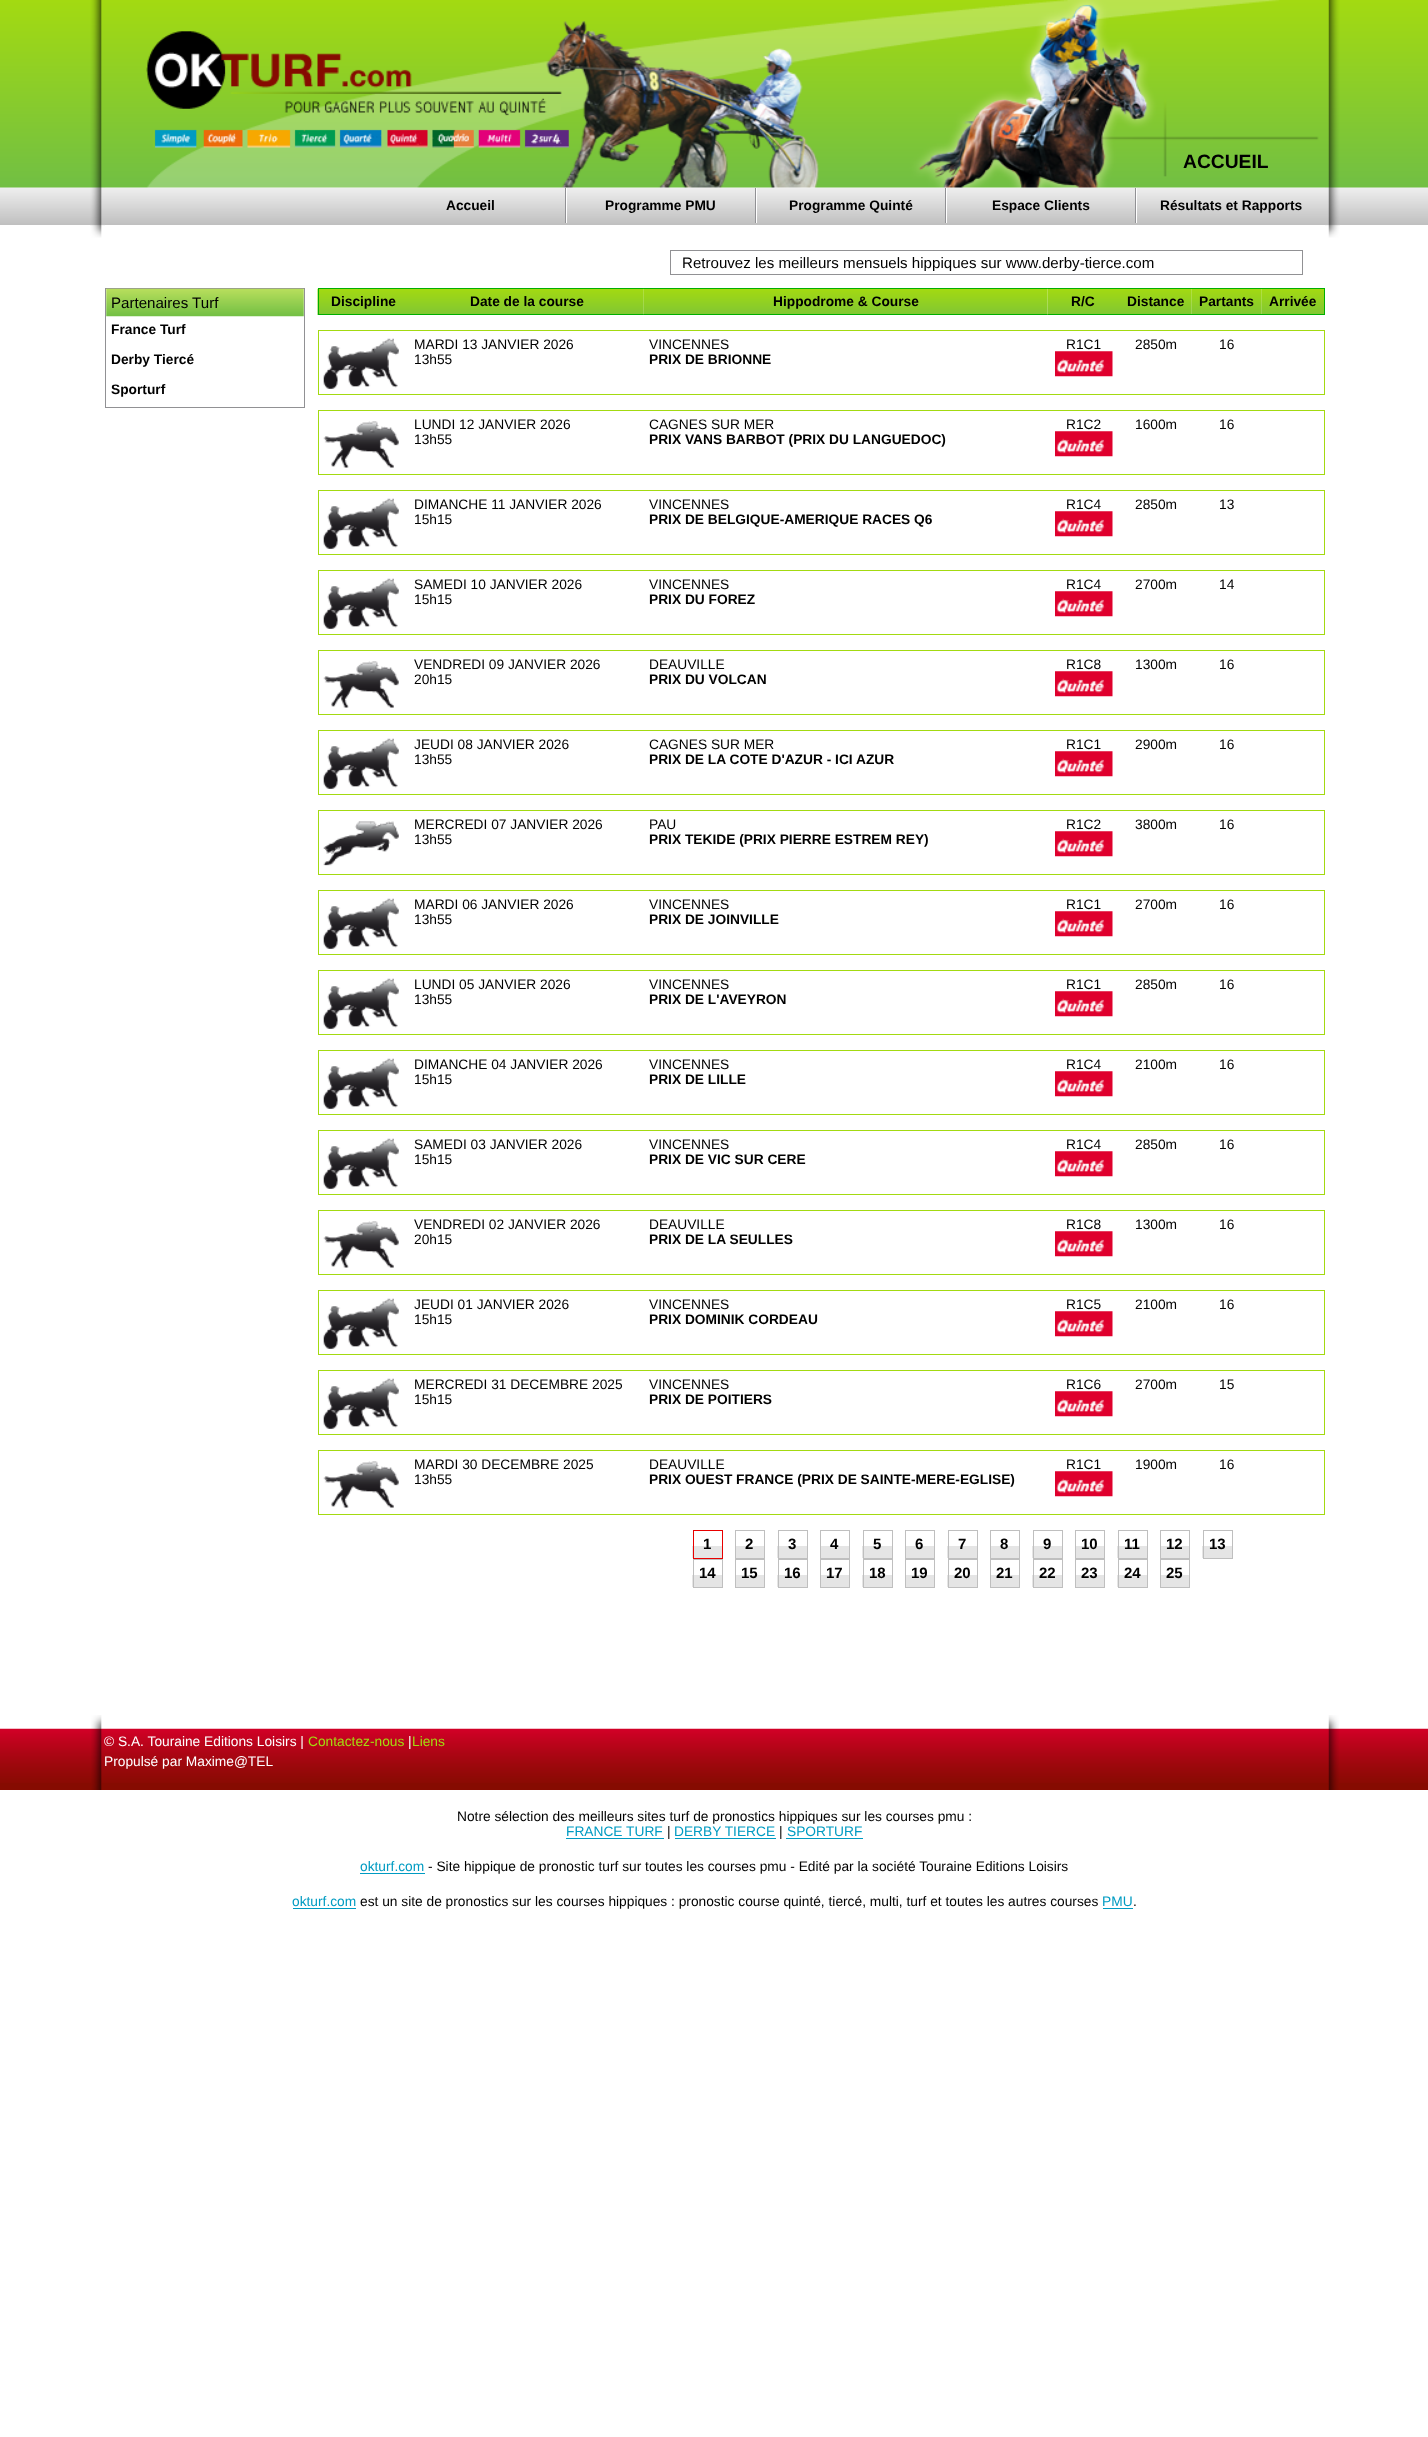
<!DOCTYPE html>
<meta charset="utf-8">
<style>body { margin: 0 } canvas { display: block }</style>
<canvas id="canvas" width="1428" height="2437"></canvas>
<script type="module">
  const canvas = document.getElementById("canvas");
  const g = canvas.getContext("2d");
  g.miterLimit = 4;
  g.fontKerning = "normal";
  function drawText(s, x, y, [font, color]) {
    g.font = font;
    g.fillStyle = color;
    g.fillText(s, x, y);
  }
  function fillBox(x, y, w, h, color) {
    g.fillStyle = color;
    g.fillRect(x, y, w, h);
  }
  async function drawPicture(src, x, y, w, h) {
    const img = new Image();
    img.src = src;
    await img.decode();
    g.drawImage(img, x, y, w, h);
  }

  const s1 = ["bold 19.25px Liberation Sans", "#000000"];
  const s2 = ["bold 13.75px Liberation Sans", "#000000"];
  const s3 = ["15.1px Liberation Sans", "#000000"];
  const s4 = ["13.75px Liberation Sans", "#000000"];
  const s5 = ["bold 15px Liberation Sans", "#000000"];
  const s6 = ["13.75px Liberation Sans", "#FFFFFF"];
  const s7 = ["13.75px Liberation Sans", "#A3DA11"];
  const s8 = ["13.75px Liberation Sans", "#009BC2"];

  fillBox(0, 0, 1428, 2437, "#FFFFFF");
  await drawPicture("pic1.png", 0, 0, 1428, 225);
  fillBox(90, 187, 1250, 38, "#FFFFFF");
  await drawPicture("pic2.png", 90, 0, 15, 238);
  await drawPicture("pic4.png", 105, 187, 1220, 38);
  await drawPicture("pic3.png", 105, 0, 1220, 188);
  drawText("ACCUEIL", 1183, 168, s1);
  fillBox(565, 188, 1, 35, "#919194");
  drawText("Accueil", 446, 210, s2);
  fillBox(755, 188, 1, 35, "#919194");
  fillBox(566, 188, 1, 35, "#FFFFFF");
  drawText("Programme PMU", 605, 210, s2);
  fillBox(945, 188, 1, 35, "#919194");
  fillBox(756, 188, 1, 35, "#FFFFFF");
  drawText("Programme Quinté", 789, 210, s2);
  fillBox(1135, 188, 1, 35, "#919194");
  fillBox(946, 188, 1, 35, "#FFFFFF");
  drawText("Espace Clients", 992, 210, s2);
  fillBox(1136, 188, 1, 35, "#FFFFFF");
  drawText("Résultats et Rapports", 1160, 210, s2);
  await drawPicture("pic5.png", 1325, 0, 15, 238);
  g.strokeStyle = "#919194";
  g.strokeRect(670.5, 250.5, 632, 24);
  g.save();
  g.beginPath();
  g.rect(674, 254, 625, 17);
  g.clip();
  drawText("Retrouvez les meilleurs mensuels hippiques sur www.derby-tierce.com", 682, 268, s3);
  g.restore();
  g.strokeRect(105.5, 288.5, 199, 119);
  await drawPicture("pic6.png", 106, 288, 198, 29);
  drawText("Partenaires Turf", 111, 308, s3);
  drawText("France Turf", 111, 334, s2);
  drawText("Derby Tiercé", 111, 364, s2);
  drawText("Sporturf", 111, 394, s2);
  await drawPicture("pic7.png", 317, 288, 93, 27);
  fillBox(318, 288, 326, 1, "#00AF00");
  fillBox(318, 314, 326, 1, "#00AF00");
  fillBox(318, 288, 1, 27, "#00AF00");
  drawText("Discipline", 331, 306, s2);
  await drawPicture("pic8.png", 410, 289, 234, 25);
  drawText("Date de la course", 470, 306, s2);
  await drawPicture("pic9.png", 643, 288, 405, 27);
  fillBox(644, 288, 404, 1, "#00AF00");
  fillBox(644, 314, 404, 1, "#00AF00");
  drawText("Hippodrome & Course", 773, 306, s2);
  await drawPicture("pic10.png", 1047, 288, 73, 27);
  fillBox(1048, 288, 277, 1, "#00AF00");
  fillBox(1048, 314, 213, 1, "#00AF00");
  drawText("R/C", 1071, 306, s2);
  await drawPicture("pic11.png", 1120, 289, 72, 25);
  drawText("Distance", 1127, 306, s2);
  await drawPicture("pic12.png", 1191, 289, 71, 25);
  drawText("Partants", 1199, 306, s2);
  await drawPicture("pic13.png", 1261, 289, 63, 25);
  fillBox(1324, 288, 1, 27, "#00AF00");
  fillBox(1261, 314, 64, 1, "#00AF00");
  drawText("Arrivée", 1269, 306, s2);
  fillBox(318, 330, 1007, 1, "#A3DA11");
  fillBox(318, 394, 943, 1, "#A3DA11");
  fillBox(318, 330, 1, 65, "#A3DA11");
  await drawPicture("pic14.png", 323, 338, 76, 51);
  drawText("MARDI 13 JANVIER 2026", 414, 349, s4);
  drawText("13h55", 414, 364, s4);
  drawText("VINCENNES", 649, 349, s4);
  drawText("PRIX DE BRIONNE", 649, 364, s2);
  drawText("R1C1", 1066, 349, s4);
  await drawPicture("pic15.png", 1055, 351, 58, 26);
  drawText("2850m", 1135, 349, s4);
  drawText("16", 1219, 349, s4);
  fillBox(1324, 330, 1, 65, "#A3DA11");
  fillBox(1261, 394, 64, 1, "#A3DA11");
  fillBox(318, 410, 1007, 1, "#A3DA11");
  fillBox(318, 474, 943, 1, "#A3DA11");
  fillBox(318, 410, 1, 65, "#A3DA11");
  await drawPicture("pic16.png", 323, 421, 76, 47);
  drawText("LUNDI 12 JANVIER 2026", 414, 429, s4);
  drawText("13h55", 414, 444, s4);
  drawText("CAGNES SUR MER", 649, 429, s4);
  drawText("PRIX VANS BARBOT (PRIX DU LANGUEDOC)", 649, 444, s2);
  drawText("R1C2", 1066, 429, s4);
  await drawPicture("pic15.png", 1055, 431, 58, 26);
  drawText("1600m", 1135, 429, s4);
  drawText("16", 1219, 429, s4);
  fillBox(1324, 410, 1, 65, "#A3DA11");
  fillBox(1261, 474, 64, 1, "#A3DA11");
  fillBox(318, 490, 1007, 1, "#A3DA11");
  fillBox(318, 554, 943, 1, "#A3DA11");
  fillBox(318, 490, 1, 65, "#A3DA11");
  await drawPicture("pic14.png", 323, 498, 76, 51);
  drawText("DIMANCHE 11 JANVIER 2026", 414, 509, s4);
  drawText("15h15", 414, 524, s4);
  drawText("VINCENNES", 649, 509, s4);
  drawText("PRIX DE BELGIQUE-AMERIQUE RACES Q6", 649, 524, s2);
  drawText("R1C4", 1066, 509, s4);
  await drawPicture("pic15.png", 1055, 511, 58, 26);
  drawText("2850m", 1135, 509, s4);
  drawText("13", 1219, 509, s4);
  fillBox(1324, 490, 1, 65, "#A3DA11");
  fillBox(1261, 554, 64, 1, "#A3DA11");
  fillBox(318, 570, 1007, 1, "#A3DA11");
  fillBox(318, 634, 943, 1, "#A3DA11");
  fillBox(318, 570, 1, 65, "#A3DA11");
  await drawPicture("pic17.png", 323, 578, 76, 51);
  drawText("SAMEDI 10 JANVIER 2026", 414, 589, s4);
  drawText("15h15", 414, 604, s4);
  drawText("VINCENNES", 649, 589, s4);
  drawText("PRIX DU FOREZ", 649, 604, s2);
  drawText("R1C4", 1066, 589, s4);
  await drawPicture("pic15.png", 1055, 591, 58, 26);
  drawText("2700m", 1135, 589, s4);
  drawText("14", 1219, 589, s4);
  fillBox(1324, 570, 1, 65, "#A3DA11");
  fillBox(1261, 634, 64, 1, "#A3DA11");
  fillBox(318, 650, 1007, 1, "#A3DA11");
  fillBox(318, 714, 943, 1, "#A3DA11");
  fillBox(318, 650, 1, 65, "#A3DA11");
  await drawPicture("pic16.png", 323, 661, 76, 47);
  drawText("VENDREDI 09 JANVIER 2026", 414, 669, s4);
  drawText("20h15", 414, 684, s4);
  drawText("DEAUVILLE", 649, 669, s4);
  drawText("PRIX DU VOLCAN", 649, 684, s2);
  drawText("R1C8", 1066, 669, s4);
  await drawPicture("pic15.png", 1055, 671, 58, 26);
  drawText("1300m", 1135, 669, s4);
  drawText("16", 1219, 669, s4);
  fillBox(1324, 650, 1, 65, "#A3DA11");
  fillBox(1261, 714, 64, 1, "#A3DA11");
  fillBox(318, 730, 1007, 1, "#A3DA11");
  fillBox(318, 794, 943, 1, "#A3DA11");
  fillBox(318, 730, 1, 65, "#A3DA11");
  await drawPicture("pic14.png", 323, 738, 76, 51);
  drawText("JEUDI 08 JANVIER 2026", 414, 749, s4);
  drawText("13h55", 414, 764, s4);
  drawText("CAGNES SUR MER", 649, 749, s4);
  drawText("PRIX DE LA COTE D'AZUR - ICI AZUR", 649, 764, s2);
  drawText("R1C1", 1066, 749, s4);
  await drawPicture("pic15.png", 1055, 751, 58, 26);
  drawText("2900m", 1135, 749, s4);
  drawText("16", 1219, 749, s4);
  fillBox(1324, 730, 1, 65, "#A3DA11");
  fillBox(1261, 794, 64, 1, "#A3DA11");
  fillBox(318, 810, 1007, 1, "#A3DA11");
  fillBox(318, 874, 943, 1, "#A3DA11");
  fillBox(318, 810, 1, 65, "#A3DA11");
  await drawPicture("pic18.png", 323, 821, 76, 45);
  drawText("MERCREDI 07 JANVIER 2026", 414, 829, s4);
  drawText("13h55", 414, 844, s4);
  drawText("PAU", 649, 829, s4);
  drawText("PRIX TEKIDE (PRIX PIERRE ESTREM REY)", 649, 844, s2);
  drawText("R1C2", 1066, 829, s4);
  await drawPicture("pic15.png", 1055, 831, 58, 26);
  drawText("3800m", 1135, 829, s4);
  drawText("16", 1219, 829, s4);
  fillBox(1324, 810, 1, 65, "#A3DA11");
  fillBox(1261, 874, 64, 1, "#A3DA11");
  fillBox(318, 890, 1007, 1, "#A3DA11");
  fillBox(318, 954, 943, 1, "#A3DA11");
  fillBox(318, 890, 1, 65, "#A3DA11");
  await drawPicture("pic14.png", 323, 898, 76, 51);
  drawText("MARDI 06 JANVIER 2026", 414, 909, s4);
  drawText("13h55", 414, 924, s4);
  drawText("VINCENNES", 649, 909, s4);
  drawText("PRIX DE JOINVILLE", 649, 924, s2);
  drawText("R1C1", 1066, 909, s4);
  await drawPicture("pic15.png", 1055, 911, 58, 26);
  drawText("2700m", 1135, 909, s4);
  drawText("16", 1219, 909, s4);
  fillBox(1324, 890, 1, 65, "#A3DA11");
  fillBox(1261, 954, 64, 1, "#A3DA11");
  fillBox(318, 970, 1007, 1, "#A3DA11");
  fillBox(318, 1034, 943, 1, "#A3DA11");
  fillBox(318, 970, 1, 65, "#A3DA11");
  await drawPicture("pic14.png", 323, 978, 76, 51);
  drawText("LUNDI 05 JANVIER 2026", 414, 989, s4);
  drawText("13h55", 414, 1004, s4);
  drawText("VINCENNES", 649, 989, s4);
  drawText("PRIX DE L'AVEYRON", 649, 1004, s2);
  drawText("R1C1", 1066, 989, s4);
  await drawPicture("pic15.png", 1055, 991, 58, 26);
  drawText("2850m", 1135, 989, s4);
  drawText("16", 1219, 989, s4);
  fillBox(1324, 970, 1, 65, "#A3DA11");
  fillBox(1261, 1034, 64, 1, "#A3DA11");
  fillBox(318, 1050, 1007, 1, "#A3DA11");
  fillBox(318, 1114, 943, 1, "#A3DA11");
  fillBox(318, 1050, 1, 65, "#A3DA11");
  await drawPicture("pic14.png", 323, 1058, 76, 51);
  drawText("DIMANCHE 04 JANVIER 2026", 414, 1069, s4);
  drawText("15h15", 414, 1084, s4);
  drawText("VINCENNES", 649, 1069, s4);
  drawText("PRIX DE LILLE", 649, 1084, s2);
  drawText("R1C4", 1066, 1069, s4);
  await drawPicture("pic15.png", 1055, 1071, 58, 26);
  drawText("2100m", 1135, 1069, s4);
  drawText("16", 1219, 1069, s4);
  fillBox(1324, 1050, 1, 65, "#A3DA11");
  fillBox(1261, 1114, 64, 1, "#A3DA11");
  fillBox(318, 1130, 1007, 1, "#A3DA11");
  fillBox(318, 1194, 943, 1, "#A3DA11");
  fillBox(318, 1130, 1, 65, "#A3DA11");
  await drawPicture("pic19.png", 323, 1138, 76, 51);
  drawText("SAMEDI 03 JANVIER 2026", 414, 1149, s4);
  drawText("15h15", 414, 1164, s4);
  drawText("VINCENNES", 649, 1149, s4);
  drawText("PRIX DE VIC SUR CERE", 649, 1164, s2);
  drawText("R1C4", 1066, 1149, s4);
  await drawPicture("pic15.png", 1055, 1151, 58, 26);
  drawText("2850m", 1135, 1149, s4);
  drawText("16", 1219, 1149, s4);
  fillBox(1324, 1130, 1, 65, "#A3DA11");
  fillBox(1261, 1194, 64, 1, "#A3DA11");
  fillBox(318, 1210, 1007, 1, "#A3DA11");
  fillBox(318, 1274, 943, 1, "#A3DA11");
  fillBox(318, 1210, 1, 65, "#A3DA11");
  await drawPicture("pic16.png", 323, 1221, 76, 47);
  drawText("VENDREDI 02 JANVIER 2026", 414, 1229, s4);
  drawText("20h15", 414, 1244, s4);
  drawText("DEAUVILLE", 649, 1229, s4);
  drawText("PRIX DE LA SEULLES", 649, 1244, s2);
  drawText("R1C8", 1066, 1229, s4);
  await drawPicture("pic15.png", 1055, 1231, 58, 26);
  drawText("1300m", 1135, 1229, s4);
  drawText("16", 1219, 1229, s4);
  fillBox(1324, 1210, 1, 65, "#A3DA11");
  fillBox(1261, 1274, 64, 1, "#A3DA11");
  fillBox(318, 1290, 1007, 1, "#A3DA11");
  fillBox(318, 1354, 943, 1, "#A3DA11");
  fillBox(318, 1290, 1, 65, "#A3DA11");
  await drawPicture("pic14.png", 323, 1298, 76, 51);
  drawText("JEUDI 01 JANVIER 2026", 414, 1309, s4);
  drawText("15h15", 414, 1324, s4);
  drawText("VINCENNES", 649, 1309, s4);
  drawText("PRIX DOMINIK CORDEAU", 649, 1324, s2);
  drawText("R1C5", 1066, 1309, s4);
  await drawPicture("pic15.png", 1055, 1311, 58, 26);
  drawText("2100m", 1135, 1309, s4);
  drawText("16", 1219, 1309, s4);
  fillBox(1324, 1290, 1, 65, "#A3DA11");
  fillBox(1261, 1354, 64, 1, "#A3DA11");
  fillBox(318, 1370, 1007, 1, "#A3DA11");
  fillBox(318, 1434, 943, 1, "#A3DA11");
  fillBox(318, 1370, 1, 65, "#A3DA11");
  await drawPicture("pic14.png", 323, 1378, 76, 51);
  drawText("MERCREDI 31 DECEMBRE 2025", 414, 1389, s4);
  drawText("15h15", 414, 1404, s4);
  drawText("VINCENNES", 649, 1389, s4);
  drawText("PRIX DE POITIERS", 649, 1404, s2);
  drawText("R1C6", 1066, 1389, s4);
  await drawPicture("pic15.png", 1055, 1391, 58, 26);
  drawText("2700m", 1135, 1389, s4);
  drawText("15", 1219, 1389, s4);
  fillBox(1324, 1370, 1, 65, "#A3DA11");
  fillBox(1261, 1434, 64, 1, "#A3DA11");
  fillBox(318, 1450, 1007, 1, "#A3DA11");
  fillBox(318, 1514, 943, 1, "#A3DA11");
  fillBox(318, 1450, 1, 65, "#A3DA11");
  await drawPicture("pic16.png", 323, 1461, 76, 47);
  drawText("MARDI 30 DECEMBRE 2025", 414, 1469, s4);
  drawText("13h55", 414, 1484, s4);
  drawText("DEAUVILLE", 649, 1469, s4);
  drawText("PRIX OUEST FRANCE (PRIX DE SAINTE-MERE-EGLISE)", 649, 1484, s2);
  drawText("R1C1", 1066, 1469, s4);
  await drawPicture("pic15.png", 1055, 1471, 58, 26);
  drawText("1900m", 1135, 1469, s4);
  drawText("16", 1219, 1469, s4);
  fillBox(1324, 1450, 1, 65, "#A3DA11");
  fillBox(1261, 1514, 64, 1, "#A3DA11");
  fillBox(692, 1546, 30, 12, "#E5E5E5");
  g.strokeStyle = "#E80000";
  g.strokeRect(693.5, 1530.5, 29, 28);
  drawText("1", 703, 1549, s5);
  fillBox(736, 1546, 28, 12, "#E5E5E5");
  g.strokeStyle = "#BFBFBF";
  g.strokeRect(735.5, 1530.5, 29, 28);
  drawText("2", 745, 1549, s5);
  fillBox(777, 1546, 30, 12, "#E5E5E5");
  g.strokeRect(778.5, 1530.5, 29, 28);
  drawText("3", 788, 1549, s5);
  fillBox(821, 1546, 28, 12, "#E5E5E5");
  g.strokeRect(820.5, 1530.5, 29, 28);
  drawText("4", 830, 1549, s5);
  fillBox(862, 1546, 30, 12, "#E5E5E5");
  g.strokeRect(863.5, 1530.5, 29, 28);
  drawText("5", 873, 1549, s5);
  fillBox(906, 1546, 28, 12, "#E5E5E5");
  g.strokeRect(905.5, 1530.5, 29, 28);
  drawText("6", 915, 1549, s5);
  fillBox(947, 1546, 30, 12, "#E5E5E5");
  g.strokeRect(948.5, 1530.5, 29, 28);
  drawText("7", 958, 1549, s5);
  fillBox(991, 1546, 28, 12, "#E5E5E5");
  g.strokeRect(990.5, 1530.5, 29, 28);
  drawText("8", 1000, 1549, s5);
  fillBox(1032, 1546, 30, 12, "#E5E5E5");
  g.strokeRect(1033.5, 1530.5, 29, 28);
  drawText("9", 1043, 1549, s5);
  fillBox(1076, 1546, 28, 12, "#E5E5E5");
  g.strokeRect(1075.5, 1530.5, 29, 28);
  drawText("10", 1081, 1549, s5);
  fillBox(1117, 1546, 30, 12, "#E5E5E5");
  g.strokeRect(1118.5, 1530.5, 29, 28);
  drawText("11", 1124, 1549, s5);
  fillBox(1161, 1546, 28, 12, "#E5E5E5");
  g.strokeRect(1160.5, 1530.5, 29, 28);
  drawText("12", 1166, 1549, s5);
  fillBox(1202, 1546, 30, 12, "#E5E5E5");
  g.strokeRect(1203.5, 1530.5, 29, 28);
  drawText("13", 1209, 1549, s5);
  fillBox(692, 1575, 30, 12, "#E5E5E5");
  g.strokeRect(693.5, 1559.5, 29, 28);
  drawText("14", 699, 1578, s5);
  fillBox(736, 1575, 28, 12, "#E5E5E5");
  g.strokeRect(735.5, 1559.5, 29, 28);
  drawText("15", 741, 1578, s5);
  fillBox(777, 1575, 30, 12, "#E5E5E5");
  g.strokeRect(778.5, 1559.5, 29, 28);
  drawText("16", 784, 1578, s5);
  fillBox(821, 1575, 28, 12, "#E5E5E5");
  g.strokeRect(820.5, 1559.5, 29, 28);
  drawText("17", 826, 1578, s5);
  fillBox(862, 1575, 30, 12, "#E5E5E5");
  g.strokeRect(863.5, 1559.5, 29, 28);
  drawText("18", 869, 1578, s5);
  fillBox(906, 1575, 28, 12, "#E5E5E5");
  g.strokeRect(905.5, 1559.5, 29, 28);
  drawText("19", 911, 1578, s5);
  fillBox(947, 1575, 30, 12, "#E5E5E5");
  g.strokeRect(948.5, 1559.5, 29, 28);
  drawText("20", 954, 1578, s5);
  fillBox(991, 1575, 28, 12, "#E5E5E5");
  g.strokeRect(990.5, 1559.5, 29, 28);
  drawText("21", 996, 1578, s5);
  fillBox(1032, 1575, 30, 12, "#E5E5E5");
  g.strokeRect(1033.5, 1559.5, 29, 28);
  drawText("22", 1039, 1578, s5);
  fillBox(1076, 1575, 28, 12, "#E5E5E5");
  g.strokeRect(1075.5, 1559.5, 29, 28);
  drawText("23", 1081, 1578, s5);
  fillBox(1117, 1575, 30, 12, "#E5E5E5");
  g.strokeRect(1118.5, 1559.5, 29, 28);
  drawText("24", 1124, 1578, s5);
  fillBox(1161, 1575, 28, 12, "#E5E5E5");
  g.strokeRect(1160.5, 1559.5, 29, 28);
  drawText("25", 1166, 1578, s5);
  fillBox(0, 1783, 1428, 7, "#860B01");
  await drawPicture("pic20.png", 0, 1715, 1428, 68);
  await drawPicture("pic21.png", 91, 1715, 11, 75);
  drawText("© S.A. Touraine Editions Loisirs |", 104, 1746, s6);
  drawText("Contactez-nous", 308, 1746, s7);
  drawText("|", 408, 1746, s6);
  drawText("Liens", 412, 1746, s7);
  drawText("Propulsé par Maxime@TEL", 104, 1766, s6);
  await drawPicture("pic22.png", 1328, 1715, 11, 75);
  drawText("Notre sélection des meilleurs sites turf de pronostics hippiques sur les courses pmu :", 457, 1821, s4);
  drawText("FRANCE TURF", 566, 1836, s8);
  fillBox(566, 1838, 98, 1, "#009BC2");
  drawText("|", 667, 1836, s4);
  drawText("DERBY TIERCE", 674, 1836, s8);
  fillBox(675, 1838, 101, 1, "#009BC2");
  drawText("|", 779, 1836, s4);
  drawText("SPORTURF", 787, 1836, s8);
  fillBox(786, 1838, 77, 1, "#009BC2");
  drawText("okturf.com", 360, 1871, s8);
  fillBox(360, 1873, 65, 1, "#009BC2");
  drawText("- Site hippique de pronostic turf sur toutes les courses pmu - Edité par la société Touraine Editions Loisirs", 428, 1871, s4);
  drawText("okturf.com", 292, 1906, s8);
  fillBox(293, 1908, 63, 1, "#009BC2");
  drawText("est un site de pronostics sur les courses hippiques : pronostic course quinté, tiercé, multi, turf et toutes les autres courses", 360, 1906, s4);
  drawText("PMU", 1102, 1906, s8);
  fillBox(1103, 1908, 30, 1, "#009BC2");
  drawText(".", 1133, 1906, s4);
</script>
